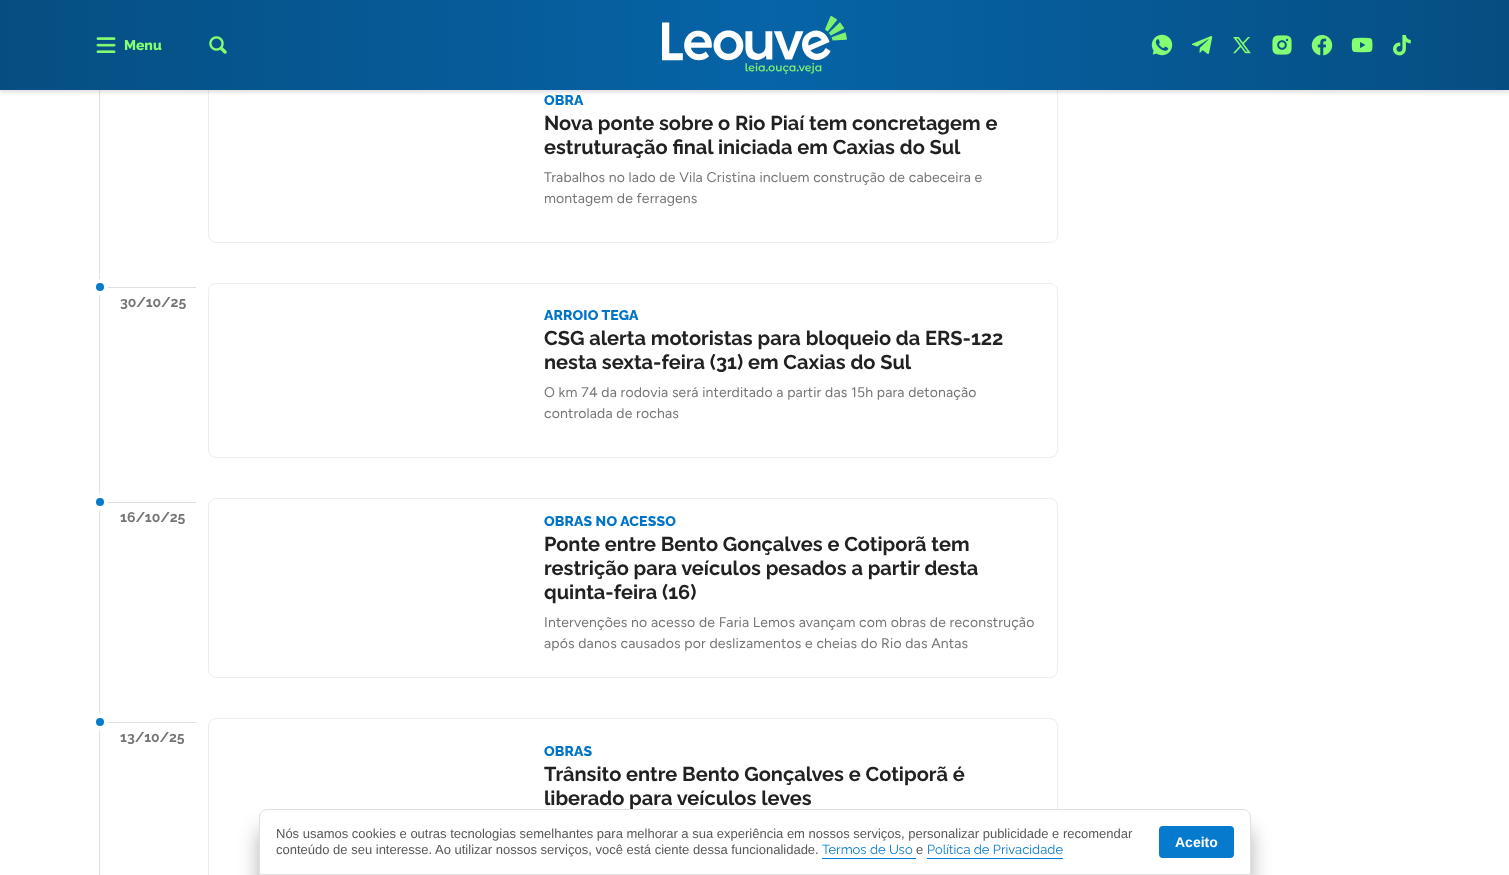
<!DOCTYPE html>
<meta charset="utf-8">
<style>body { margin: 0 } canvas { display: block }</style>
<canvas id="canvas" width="1509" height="875"></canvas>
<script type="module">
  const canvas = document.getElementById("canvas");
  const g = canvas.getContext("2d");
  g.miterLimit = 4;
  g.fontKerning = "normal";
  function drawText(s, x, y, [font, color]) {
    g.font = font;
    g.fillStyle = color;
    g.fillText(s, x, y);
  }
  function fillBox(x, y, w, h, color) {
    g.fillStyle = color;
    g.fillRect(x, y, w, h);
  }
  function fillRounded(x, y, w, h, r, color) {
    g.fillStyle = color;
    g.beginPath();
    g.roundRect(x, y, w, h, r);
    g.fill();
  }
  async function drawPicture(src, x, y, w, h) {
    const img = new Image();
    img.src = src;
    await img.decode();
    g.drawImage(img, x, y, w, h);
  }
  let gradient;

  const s1 = ["800 14px Raleway", "#85FF72"];
  const s2 = ["800 14px Raleway", "#0075C7"];
  const s3 = ["bold 20px Raleway", "#212121"];
  const s4 = ["14px Figtree", "#757575"];
  const s5 = ["bold 14px Raleway", "#757575"];
  const s6 = ["13px Liberation Sans", "#585858"];
  const s7 = ["13px Raleway", "#067ACC"];
  const s8 = ["bold 14px Liberation Sans", "#FFFFFF"];

  fillBox(0, 0, 1509, 875, "#FFFFFF");
  fillBox(99, 90, 1, 785, "#E0E0E0");
  g.beginPath();
  g.roundRect(208.5, 67.5, 849, 175, 7.5);
  g.strokeStyle = "#EDEDED";
  g.stroke();
  g.fillStyle = "rgba(0, 0, 0, 0.1)";
  g.filter = "blur(1.5px)";
  g.beginPath();
  g.rect(0, 3, 1509, 90);
  g.fill();
  g.filter = "none";
  gradient = g.createLinearGradient(0, 45, 1509, 45);
  gradient.addColorStop(0, "#064E82");
  gradient.addColorStop(0.51, "#0664A7");
  gradient.addColorStop(1, "#064E82");
  g.fillStyle = gradient;
  g.fillRect(0, 0, 1509, 90);
  await drawPicture("pic1.png", 96, 37, 20, 16);
  drawText("Menu", 124, 50, s1);
  await drawPicture("pic2.png", 209, 36, 18, 18);
  await drawPicture("pic3.png", 662, 16, 185, 58);
  await drawPicture("pic4.png", 1151, 34, 22, 22);
  await drawPicture("pic5.png", 1191, 36, 22, 18);
  await drawPicture("pic6.png", 1233, 37, 18, 17);
  await drawPicture("pic7.png", 1272, 35, 20, 20);
  await drawPicture("pic8.png", 1311, 35, 22, 21);
  await drawPicture("pic9.png", 1351, 37, 22, 16);
  await drawPicture("pic10.png", 1393, 35, 18, 21);
  g.letterSpacing = "0.15px";
  drawText("OBRA", 544, 105, s2);
  g.letterSpacing = "0px";
  drawText("Nova ponte sobre o Rio Piaí tem concretagem e", 544, 130, s3);
  drawText("estruturação final iniciada em Caxias do Sul", 544, 154, s3);
  g.letterSpacing = "0.15px";
  drawText("Trabalhos no lado de Vila Cristina incluem construção de cabeceira e", 544, 182, s4);
  drawText("montagem de ferragens", 544, 203, s4);
  fillBox(96, 287, 100, 1, "#E0E0E0");
  g.fillStyle = "#067ACC";
  g.beginPath();
  g.arc(100, 287, 6, 0, Math.PI * 2);
  g.fill();
  g.strokeStyle = "#FFFFFF";
  g.lineWidth = 4;
  g.stroke();
  g.letterSpacing = "0px";
  drawText("30/10/25", 120, 307, s5);
  g.beginPath();
  g.roundRect(208.5, 283.5, 849, 174, 7.5);
  g.strokeStyle = "#EDEDED";
  g.lineWidth = 1;
  g.stroke();
  g.letterSpacing = "0.15px";
  drawText("ARROIO TEGA", 544, 320, s2);
  g.letterSpacing = "0px";
  drawText("CSG alerta motoristas para bloqueio da ERS-122", 544, 345, s3);
  drawText("nesta sexta-feira (31) em Caxias do Sul", 544, 369, s3);
  g.letterSpacing = "0.15px";
  drawText("O km 74 da rodovia será interditado a partir das 15h para detonação", 544, 397, s4);
  drawText("controlada de rochas", 544, 418, s4);
  fillBox(96, 502, 100, 1, "#E0E0E0");
  g.fillStyle = "#067ACC";
  g.beginPath();
  g.arc(100, 502, 6, 0, Math.PI * 2);
  g.fill();
  g.strokeStyle = "#FFFFFF";
  g.lineWidth = 4;
  g.stroke();
  g.letterSpacing = "0px";
  drawText("16/10/25", 120, 522, s5);
  g.beginPath();
  g.roundRect(208.5, 498.5, 849, 179, 7.5);
  g.strokeStyle = "#EDEDED";
  g.lineWidth = 1;
  g.stroke();
  g.letterSpacing = "0.15px";
  drawText("OBRAS NO ACESSO", 544, 526, s2);
  g.letterSpacing = "0px";
  drawText("Ponte entre Bento Gonçalves e Cotiporã tem", 544, 551, s3);
  drawText("restrição para veículos pesados a partir desta", 544, 575, s3);
  drawText("quinta-feira (16)", 544, 599, s3);
  g.letterSpacing = "0.15px";
  drawText("Intervenções no acesso de Faria Lemos avançam com obras de reconstrução", 544, 627, s4);
  drawText("após danos causados por deslizamentos e cheias do Rio das Antas", 544, 648, s4);
  fillBox(96, 722, 100, 1, "#E0E0E0");
  g.fillStyle = "#067ACC";
  g.beginPath();
  g.arc(100, 722, 6, 0, Math.PI * 2);
  g.fill();
  g.strokeStyle = "#FFFFFF";
  g.lineWidth = 4;
  g.stroke();
  g.letterSpacing = "0px";
  drawText("13/10/25", 120, 742, s5);
  g.beginPath();
  g.roundRect(208.5, 718.5, 849, 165, 7.5);
  g.strokeStyle = "#EDEDED";
  g.lineWidth = 1;
  g.stroke();
  g.letterSpacing = "0.15px";
  drawText("OBRAS", 544, 756, s2);
  g.letterSpacing = "0px";
  drawText("Trânsito entre Bento Gonçalves e Cotiporã é", 544, 781, s3);
  drawText("liberado para veículos leves", 544, 805, s3);
  g.fillStyle = "rgba(0, 0, 0, 0.3)";
  g.filter = "blur(10px)";
  g.beginPath();
  g.roundRect(259, 829, 992, 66, 8);
  g.fill();
  g.filter = "none";
  g.fillStyle = "#FFFFFF";
  g.beginPath();
  g.roundRect(259.5, 809.5, 991, 65, [7.5, 7.5, 0, 0]);
  g.fill();
  g.strokeStyle = "#E0E0E0";
  g.stroke();
  drawText("Nós usamos cookies e outras tecnologias semelhantes para melhorar a sua experiência em nossos serviços, personalizar publicidade e recomendar", 276, 838, s6);
  drawText("conteúdo de seu interesse. Ao utilizar nossos serviços, você está ciente dessa funcionalidade.", 276, 854, s6);
  drawText("Termos de Uso", 822, 854, s7);
  fillBox(822, 858, 94, 1, "#067ACC");
  drawText("e", 916, 854, s6);
  drawText("Política de Privacidade", 927, 854, s7);
  fillBox(927, 858, 136, 1, "#067ACC");
  fillRounded(1159, 826, 75, 32, 4, "#067ACC");
  drawText("Aceito", 1175, 847, s8);
</script>
